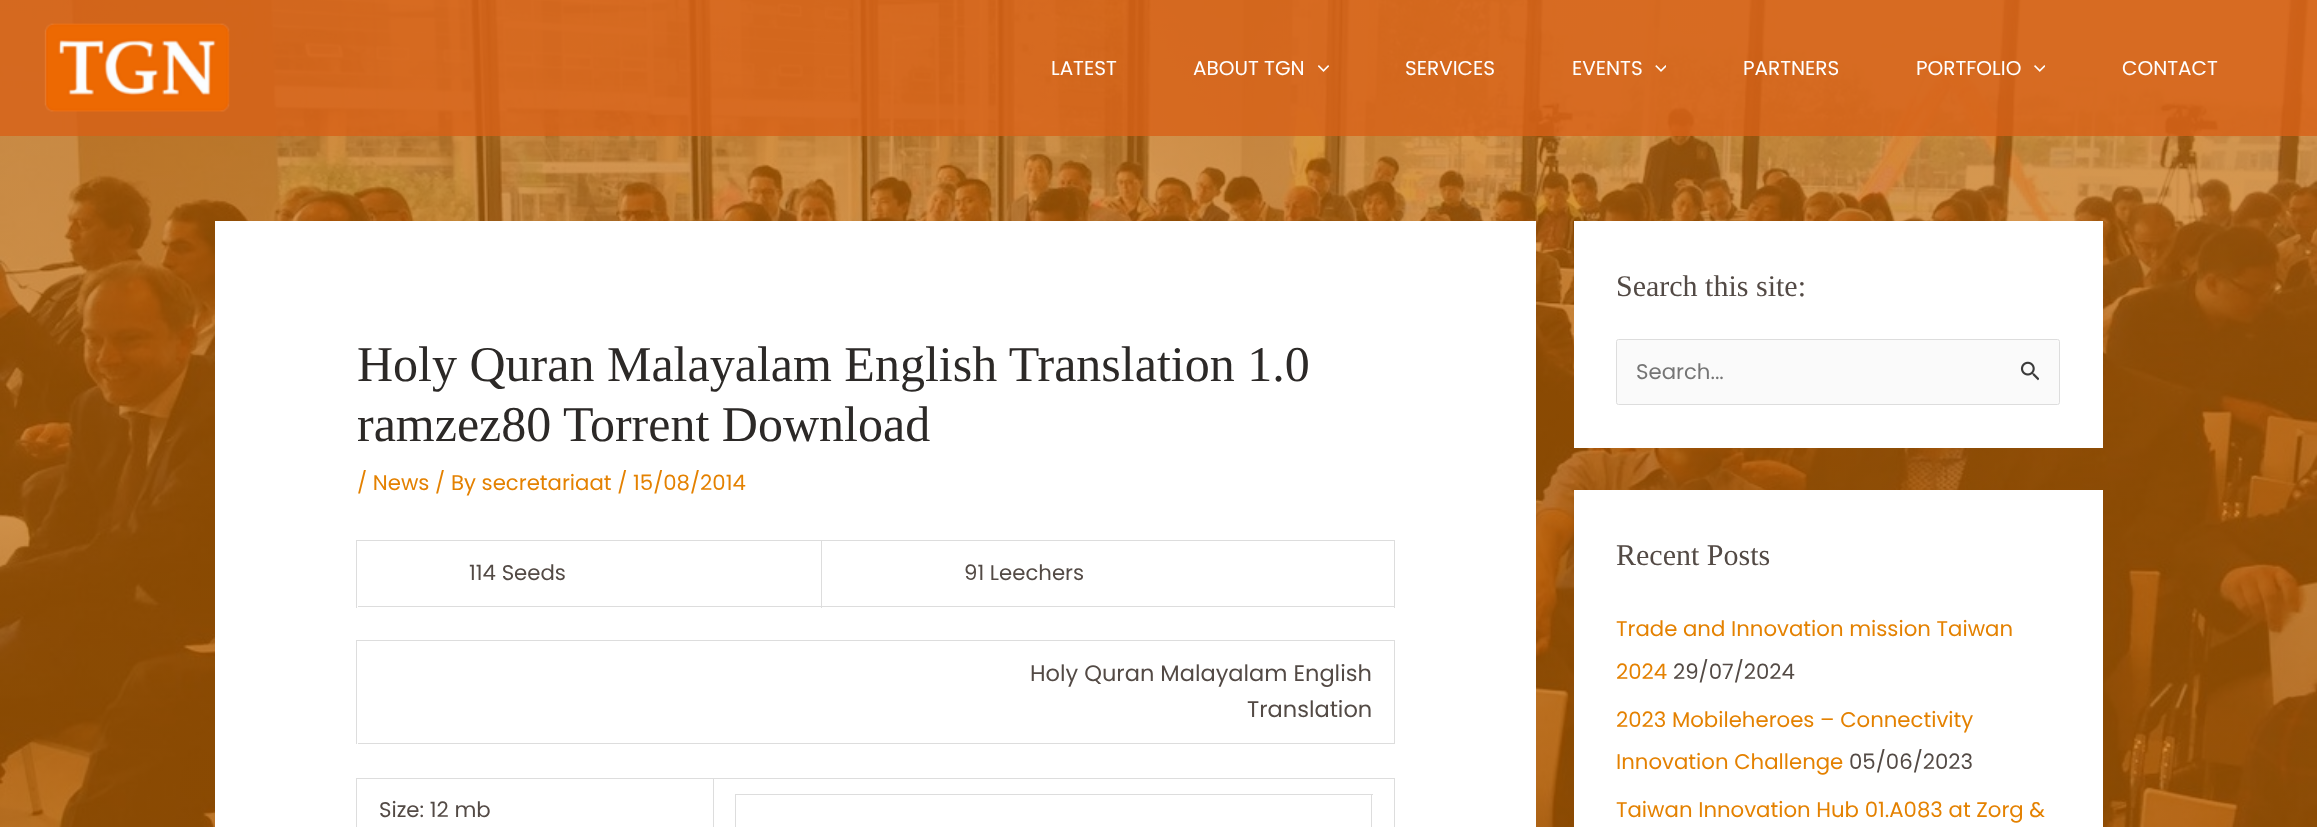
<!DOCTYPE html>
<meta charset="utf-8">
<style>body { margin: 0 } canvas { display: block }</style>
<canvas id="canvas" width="2317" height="827"></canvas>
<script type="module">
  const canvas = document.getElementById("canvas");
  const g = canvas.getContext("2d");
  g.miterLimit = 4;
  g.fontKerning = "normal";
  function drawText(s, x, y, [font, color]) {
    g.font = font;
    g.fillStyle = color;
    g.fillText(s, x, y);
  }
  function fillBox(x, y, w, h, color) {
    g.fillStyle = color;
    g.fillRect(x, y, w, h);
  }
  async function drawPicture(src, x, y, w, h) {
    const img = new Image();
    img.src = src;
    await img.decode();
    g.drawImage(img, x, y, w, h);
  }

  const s1 = ["20px Poppins", "#FFFFFF"];
  const s2 = ["50px Liberation Serif", "#2C2927"];
  const s3 = ["21.25px Poppins", "#E48100"];
  const s4 = ["21.25px Poppins", "#534A45"];
  const s5 = ["22.5px Poppins", "#534A45"];
  const s6 = ["30px Liberation Serif", "#534A45"];
  const s7 = ["21.25px Poppins", "#757575"];

  fillBox(0, 0, 2317, 827, "#FFFFFF");
  await drawPicture("pic1.png", 0, 0, 2317, 827);
  fillBox(0, 0, 2317, 136, "rgba(216, 97, 24, 0.81)");
  await drawPicture("pic2.png", 44, 23, 186, 89);
  drawText("LATEST", 1051, 75, s1);
  drawText("ABOUT TGN", 1193, 75, s1);
  await drawPicture("pic3.png", 1318, 65, 11, 7);
  drawText("SERVICES", 1405, 75, s1);
  drawText("EVENTS", 1572, 75, s1);
  await drawPicture("pic4.png", 1655, 65, 11, 7);
  drawText("PARTNERS", 1743, 75, s1);
  drawText("PORTFOLIO", 1916, 75, s1);
  await drawPicture("pic5.png", 2034, 65, 11, 7);
  drawText("CONTACT", 2122, 75, s1);
  fillBox(215, 221, 1321, 606, "#FFFFFF");
  drawText("Holy Quran Malayalam English Translation 1.0", 357, 381, s2);
  drawText("ramzez80 Torrent Download", 357, 441, s2);
  drawText("/ News / By secretariaat / 15/08/2014", 357, 490, s3);
  fillBox(356, 540, 1039, 1, "#DDDDDD");
  fillBox(356, 540, 1, 68, "#DDDDDD");
  fillBox(821, 541, 1, 67, "#DDDDDD");
  fillBox(358, 606, 465, 1, "#DDDDDD");
  drawText("114 Seeds", 469, 580, s4);
  fillBox(1394, 541, 1, 67, "#DDDDDD");
  fillBox(823, 606, 572, 1, "#DDDDDD");
  drawText("91 Leechers", 964, 580, s4);
  fillBox(356, 640, 1039, 1, "#DDDDDD");
  fillBox(356, 640, 1, 104, "#DDDDDD");
  fillBox(1394, 641, 1, 103, "#DDDDDD");
  fillBox(358, 743, 1037, 1, "#DDDDDD");
  drawText("Holy Quran Malayalam English", 1030, 681, s5);
  drawText("Translation", 1247, 717, s5);
  fillBox(356, 778, 1039, 1, "#DDDDDD");
  fillBox(356, 778, 1, 49, "#DDDDDD");
  fillBox(713, 779, 1, 48, "#DDDDDD");
  drawText("Size: 12 mb", 379, 817, s4);
  fillBox(1394, 779, 1, 48, "#DDDDDD");
  fillBox(735, 794, 638, 1, "#DDDDDD");
  fillBox(735, 794, 1, 33, "#DDDDDD");
  fillBox(1371, 795, 1, 32, "#DDDDDD");
  fillBox(1574, 221, 529, 227, "#FFFFFF");
  drawText("Search this site:", 1616, 296, s6);
  g.fillStyle = "#FAFAFA";
  g.beginPath();
  g.roundRect(1616.5, 339.5, 443, 65, 2);
  g.fill();
  g.strokeStyle = "#DDDDDD";
  g.stroke();
  drawText("Search...", 1636, 379, s7);
  await drawPicture("pic6.png", 2020, 361, 19, 20);
  fillBox(1574, 490, 529, 337, "#FFFFFF");
  drawText("Recent Posts", 1616, 565, s6);
  drawText("Trade and Innovation mission Taiwan", 1616, 636, s3);
  drawText("2024", 1616, 679, s3);
  drawText("29/07/2024", 1673, 679, s4);
  drawText("2023 Mobileheroes – Connectivity", 1616, 727, s3);
  drawText("Innovation Challenge", 1616, 769, s3);
  drawText("05/06/2023", 1849, 769, s4);
  drawText("Taiwan Innovation Hub 01.A083 at Zorg &", 1616, 817, s3);
</script>
